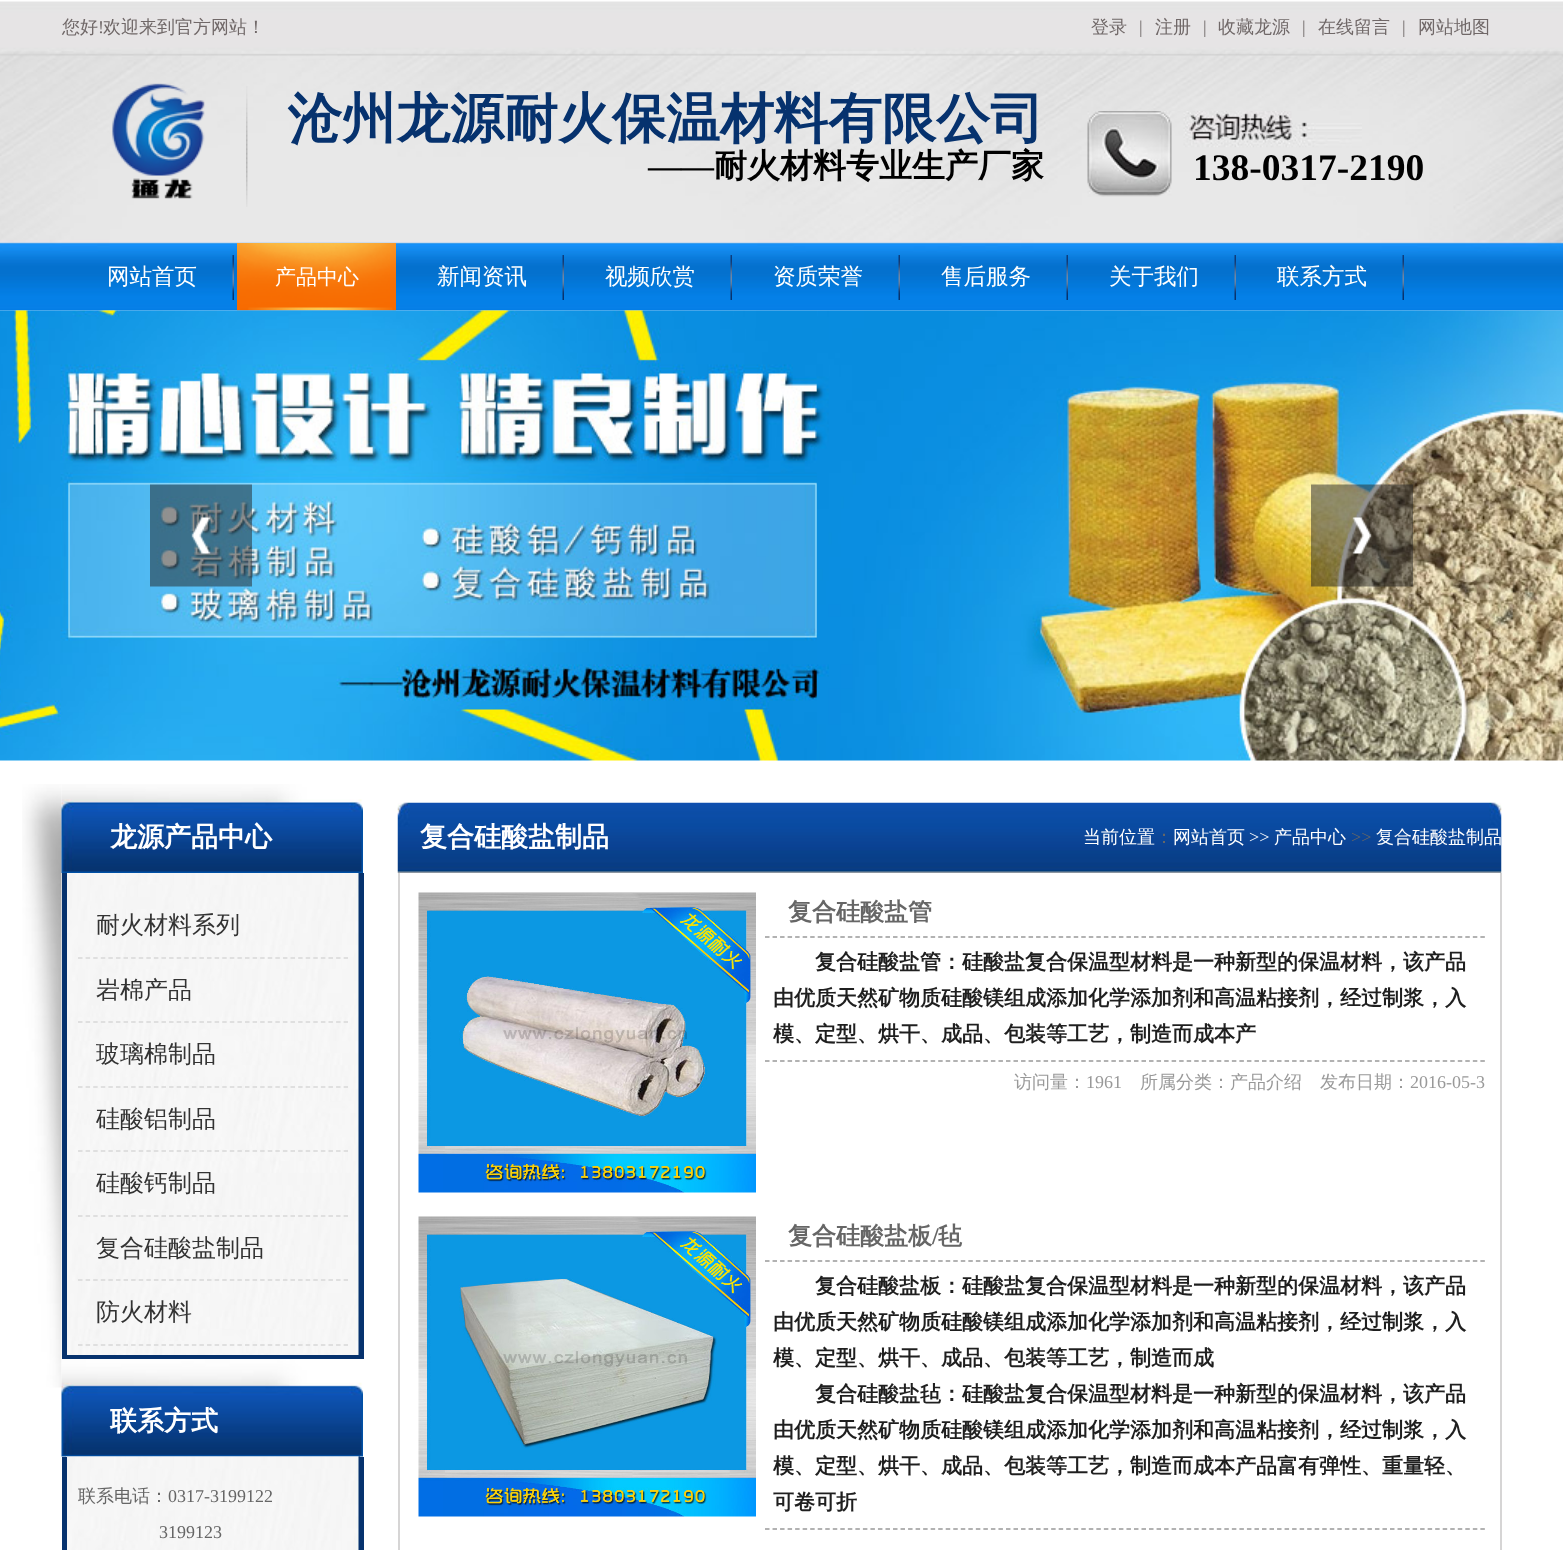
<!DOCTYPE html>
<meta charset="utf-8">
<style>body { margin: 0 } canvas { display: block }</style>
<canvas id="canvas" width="1563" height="1550"></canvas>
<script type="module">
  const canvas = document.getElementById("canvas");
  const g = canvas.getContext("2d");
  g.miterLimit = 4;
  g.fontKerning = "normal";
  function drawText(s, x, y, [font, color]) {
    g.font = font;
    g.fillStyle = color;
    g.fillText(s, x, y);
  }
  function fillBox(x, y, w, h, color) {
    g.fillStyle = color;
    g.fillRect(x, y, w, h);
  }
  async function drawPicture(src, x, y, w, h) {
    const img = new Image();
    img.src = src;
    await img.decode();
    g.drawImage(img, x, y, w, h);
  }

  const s1 = ["500 18px WenQuanYi Zen Hei", "#706868"];
  const s2 = ["18px Liberation Serif", "#706868"];
  const s3 = ["bold 54px WenQuanYi Zen Hei", "#06326E"];
  const s4 = ["bold 33px Liberation Serif", "#000000"];
  const s5 = ["bold 33px WenQuanYi Zen Hei", "#000000"];
  const s6 = ["bold 37.5px Liberation Serif", "#000000"];
  const s7 = ["500 22.5px WenQuanYi Zen Hei", "#FFFFFF"];
  const s8 = ["500 21px WenQuanYi Zen Hei", "#FFFFFF"];
  const s9 = ["bold 27px WenQuanYi Zen Hei", "#FFFFFF"];
  const s10 = ["500 24px WenQuanYi Zen Hei", "#333333"];
  const s11 = ["500 18px WenQuanYi Zen Hei", "#666666"];
  const s12 = ["18px Liberation Serif", "#666666"];
  const s13 = ["500 18px WenQuanYi Zen Hei", "#FFFFFF"];
  const s14 = ["18px Liberation Serif", "#FFFFFF"];
  const s15 = ["bold 24px WenQuanYi Zen Hei", "#666666"];
  const s16 = ["bold 21px WenQuanYi Zen Hei", "#1F1F1F"];
  const s17 = ["500 18px WenQuanYi Zen Hei", "#999999"];
  const s18 = ["18px Liberation Serif", "#999999"];
  const s19 = ["bold 24px Liberation Serif", "#666666"];

  fillBox(0, 0, 1563, 1550, "#FFFFFF");
  await drawPicture("pic1.png", 0, 1, 1563, 310);
  drawText("您好", 62, 33, s1);
  drawText("!", 98, 33, s2);
  drawText("欢迎来到官方网站！", 103, 33, s1);
  drawText("登录", 1091, 33, s1);
  drawText("|", 1139, 33, s2);
  drawText("注册", 1155, 33, s1);
  drawText("|", 1203, 33, s2);
  drawText("收藏龙源", 1218, 33, s1);
  drawText("|", 1302, 33, s2);
  drawText("在线留言", 1318, 33, s1);
  drawText("|", 1402, 33, s2);
  drawText("网站地图", 1418, 33, s1);
  await drawPicture("pic2.png", 112, 83, 93, 116);
  await drawPicture("pic3.png", 246, 86, 2, 121);
  drawText("沧州龙源耐火保温材料有限公司", 288, 137, s3);
  drawText("——", 648, 177, s4);
  drawText("耐火材料专业生产厂家", 714, 177, s5);
  await drawPicture("pic4.png", 1087, 111, 275, 86);
  drawText("138-0317-2190", 1193, 180, s6);
  await drawPicture("pic5.png", 232, 255, 2, 45);
  drawText("网站首页", 107, 284, s7);
  await drawPicture("pic6.png", 237, 243, 159, 68);
  drawText("产品中心", 275, 284, s8);
  await drawPicture("pic5.png", 562, 255, 2, 45);
  drawText("新闻资讯", 437, 284, s7);
  await drawPicture("pic5.png", 730, 255, 2, 45);
  drawText("视频欣赏", 605, 284, s7);
  await drawPicture("pic5.png", 898, 255, 2, 45);
  drawText("资质荣誉", 773, 284, s7);
  await drawPicture("pic5.png", 1066, 255, 2, 45);
  drawText("售后服务", 941, 284, s7);
  await drawPicture("pic5.png", 1234, 255, 2, 45);
  drawText("关于我们", 1109, 284, s7);
  await drawPicture("pic5.png", 1402, 255, 2, 45);
  drawText("联系方式", 1277, 284, s7);
  await drawPicture("pic7.png", 0, 310, 1563, 451);
  await drawPicture("pic8.png", 150, 484, 102, 103);
  await drawPicture("pic9.png", 1311, 484, 102, 103);
  await drawPicture("pic10.png", 22, 784, 40, 604);
  await drawPicture("pic11.png", 61, 784, 302, 89);
  drawText("龙源产品中心", 110, 846, s9);
  await drawPicture("pic12.png", 67, 873, 292, 482);
  fillBox(359, 873, 5, 486, "#06326E");
  fillBox(62, 1355, 301, 4, "#06326E");
  fillBox(62, 873, 5, 486, "#06326E");
  g.beginPath();
  g.moveTo(78, 958);
  g.lineTo(348, 958);
  g.strokeStyle = "#D8D8D8";
  g.lineWidth = 1.5;
  g.setLineDash([4.5, 3.09]);
  g.stroke();
  drawText("耐火材料系列", 96, 933, s10);
  g.beginPath();
  g.moveTo(78, 1022);
  g.lineTo(348, 1022);
  g.stroke();
  drawText("岩棉产品", 96, 998, s10);
  g.beginPath();
  g.moveTo(78, 1087);
  g.lineTo(348, 1087);
  g.stroke();
  drawText("玻璃棉制品", 96, 1062, s10);
  g.beginPath();
  g.moveTo(78, 1151);
  g.lineTo(348, 1151);
  g.stroke();
  drawText("硅酸铝制品", 96, 1127, s10);
  g.beginPath();
  g.moveTo(78, 1216);
  g.lineTo(348, 1216);
  g.stroke();
  drawText("硅酸钙制品", 96, 1191, s10);
  g.beginPath();
  g.moveTo(78, 1280);
  g.lineTo(348, 1280);
  g.stroke();
  drawText("复合硅酸盐制品", 96, 1256, s10);
  g.beginPath();
  g.moveTo(78, 1345);
  g.lineTo(348, 1345);
  g.stroke();
  drawText("防火材料", 96, 1320, s10);
  await drawPicture("pic13.png", 61, 1359, 302, 98);
  drawText("联系方式", 110, 1430, s9);
  await drawPicture("pic14.png", 66, 1456, 294, 94);
  fillBox(359, 1457, 5, 93, "#06326E");
  fillBox(62, 1457, 5, 93, "#06326E");
  drawText("联系电话：", 78, 1502, s11);
  drawText("0317-3199122", 168, 1502, s12);
  drawText("3199123", 159, 1538, s12);
  await drawPicture("pic15.png", 397, 802, 1105, 71);
  drawText("复合硅酸盐制品", 420, 846, s9);
  drawText("当前位置", 1083, 843, s13);
  drawText("：", 1155, 843, s11);
  drawText("网站首页", 1173, 843, s13);
  drawText(">>", 1249, 843, s14);
  drawText("产品中心", 1274, 843, s13);
  drawText(">>", 1351, 843, s12);
  drawText("复合硅酸盐制品", 1376, 843, s13);
  fillBox(1500, 873, 2, 677, "#D6D5D5");
  fillBox(398, 873, 2, 677, "#D6D5D5");
  await drawPicture("pic16.png", 418, 892, 338, 301);
  g.beginPath();
  g.moveTo(765, 937);
  g.lineTo(1485, 937);
  g.strokeStyle = "#999999";
  g.setLineDash([4.5, 3.03]);
  g.stroke();
  drawText("复合硅酸盐管", 788, 920, s15);
  drawText("复合硅酸盐管：硅酸盐复合保温型材料是一种新型的保温材料，该产品", 815, 969, s16);
  drawText("由优质天然矿物质硅酸镁组成添加化学添加剂和高温粘接剂，经过制浆，入", 773, 1005, s16);
  drawText("模、定型、烘干、成品、包装等工艺，制造而成本产", 773, 1041, s16);
  g.beginPath();
  g.moveTo(765, 1061);
  g.lineTo(1485, 1061);
  g.stroke();
  drawText("访问量：", 1014, 1088, s17);
  drawText("1961", 1086, 1088, s18);
  drawText("所属分类：产品介绍", 1140, 1088, s17);
  drawText("发布日期：", 1320, 1088, s17);
  drawText("2016-05-3", 1410, 1088, s18);
  await drawPicture("pic17.png", 418, 1216, 338, 301);
  g.beginPath();
  g.moveTo(765, 1261);
  g.lineTo(1485, 1261);
  g.stroke();
  drawText("复合硅酸盐板", 788, 1244, s15);
  drawText("/", 932, 1244, s19);
  drawText("毡", 938, 1244, s15);
  drawText("复合硅酸盐板：硅酸盐复合保温型材料是一种新型的保温材料，该产品", 815, 1293, s16);
  drawText("由优质天然矿物质硅酸镁组成添加化学添加剂和高温粘接剂，经过制浆，入", 773, 1329, s16);
  drawText("模、定型、烘干、成品、包装等工艺，制造而成", 773, 1365, s16);
  drawText("复合硅酸盐毡：硅酸盐复合保温型材料是一种新型的保温材料，该产品", 815, 1401, s16);
  drawText("由优质天然矿物质硅酸镁组成添加化学添加剂和高温粘接剂，经过制浆，入", 773, 1437, s16);
  drawText("模、定型、烘干、成品、包装等工艺，制造而成本产品富有弹性、重量轻、", 773, 1473, s16);
  drawText("可卷可折", 773, 1509, s16);
  g.beginPath();
  g.moveTo(765, 1529);
  g.lineTo(1485, 1529);
  g.stroke();
</script>
